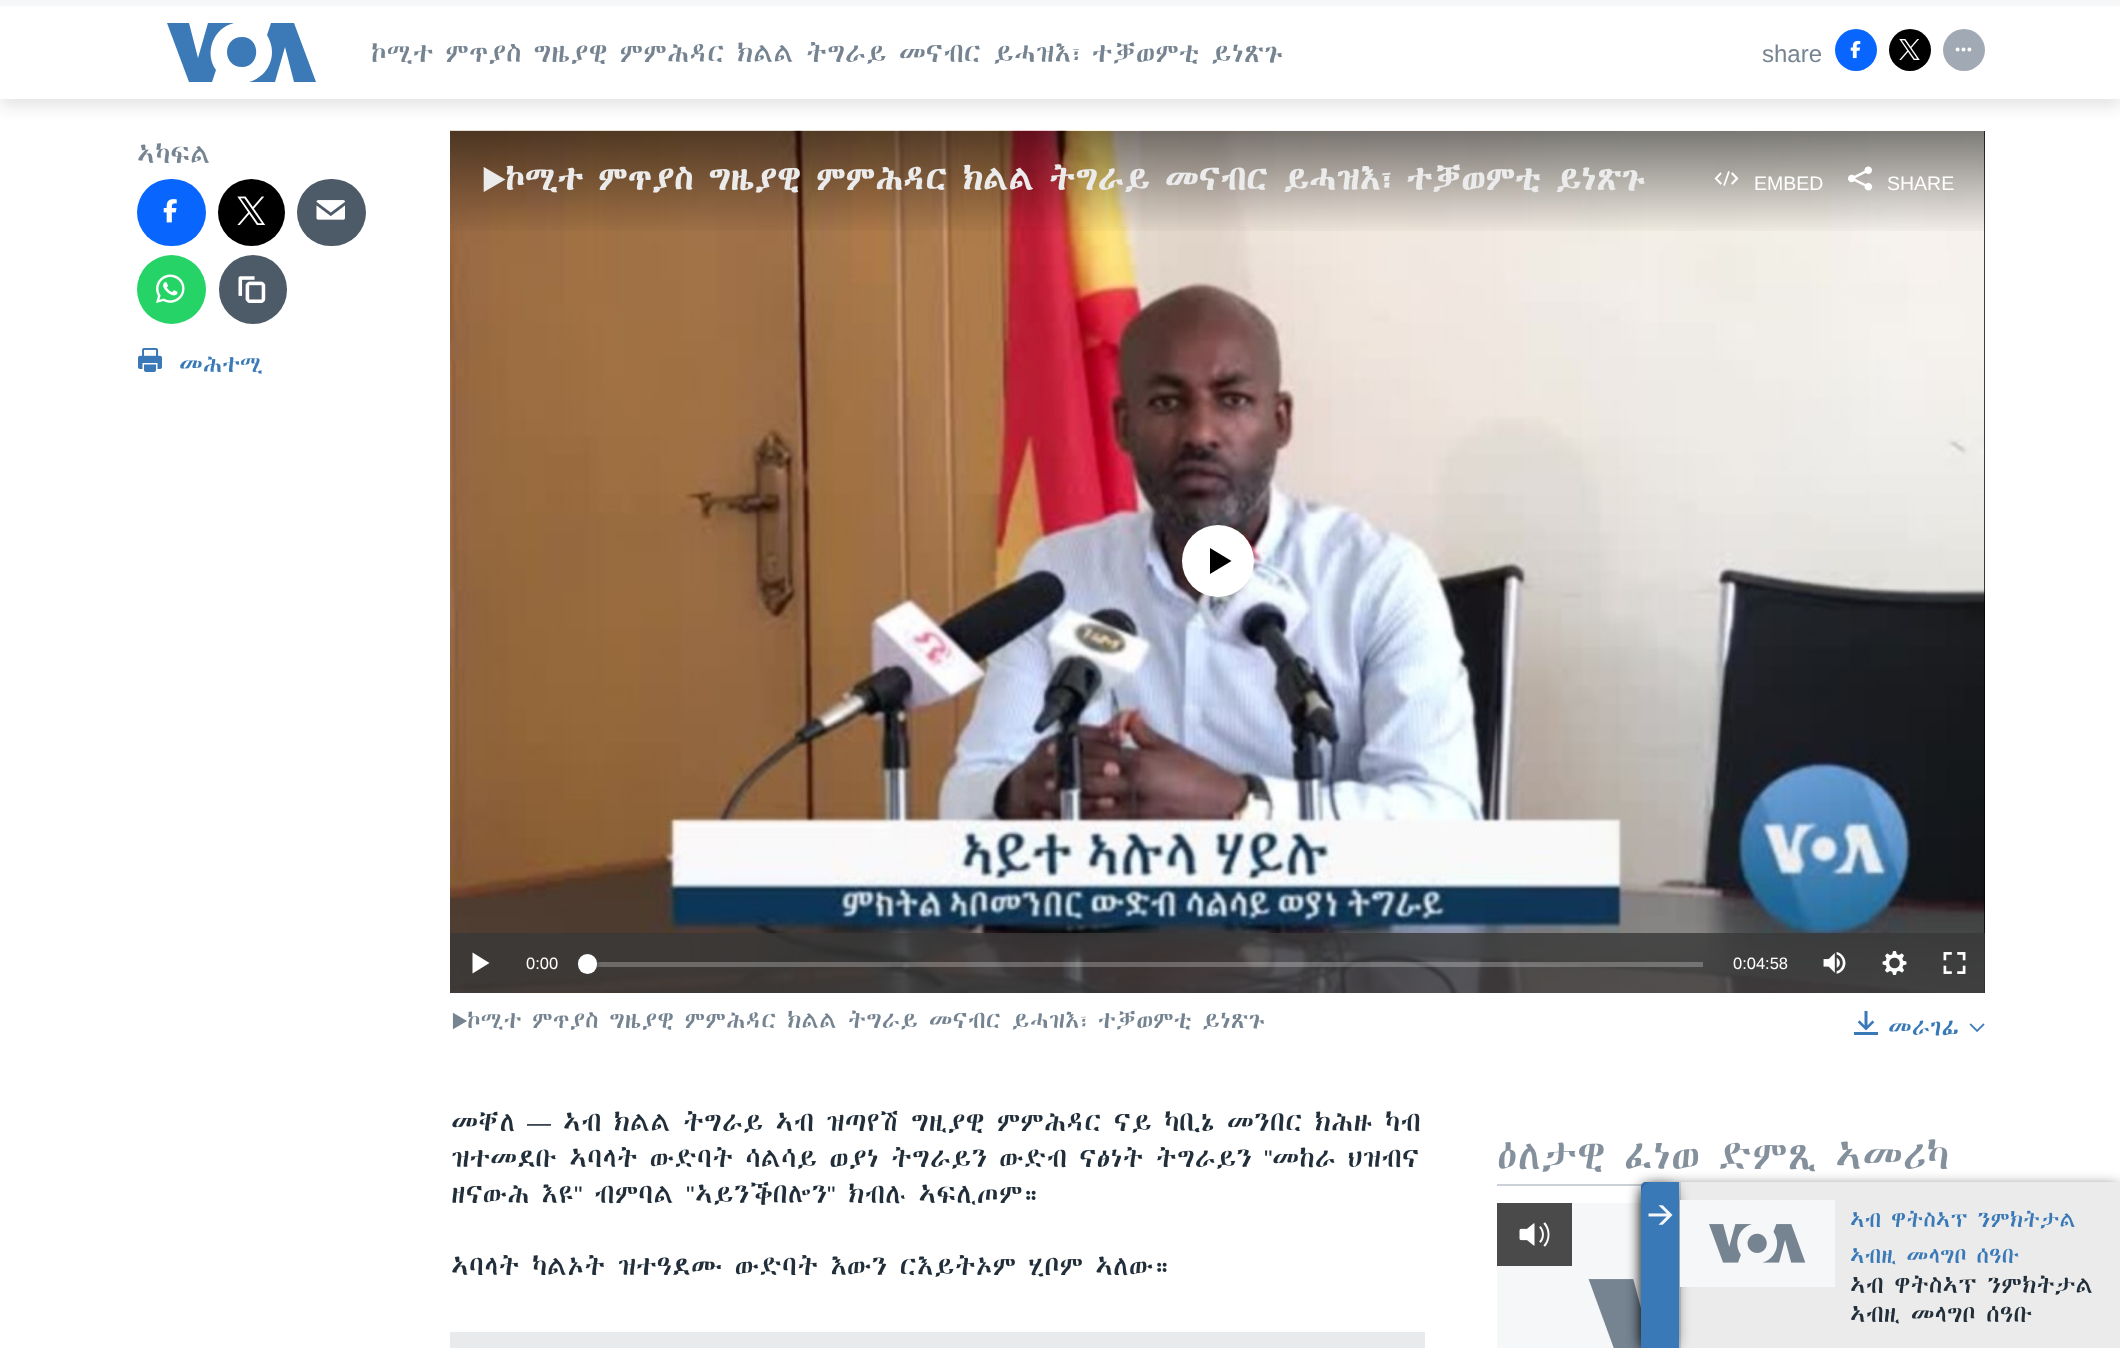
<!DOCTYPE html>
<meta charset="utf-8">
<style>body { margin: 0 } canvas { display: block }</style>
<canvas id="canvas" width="2120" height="1348"></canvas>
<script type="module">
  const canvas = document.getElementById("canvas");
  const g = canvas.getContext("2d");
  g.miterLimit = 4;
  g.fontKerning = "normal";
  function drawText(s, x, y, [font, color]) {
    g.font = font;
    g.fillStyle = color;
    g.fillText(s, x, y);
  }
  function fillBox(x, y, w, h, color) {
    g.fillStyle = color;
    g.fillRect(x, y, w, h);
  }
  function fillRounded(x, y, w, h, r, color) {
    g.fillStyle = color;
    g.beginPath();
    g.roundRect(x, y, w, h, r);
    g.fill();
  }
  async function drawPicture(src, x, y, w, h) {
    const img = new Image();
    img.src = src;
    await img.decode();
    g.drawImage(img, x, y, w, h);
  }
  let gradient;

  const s1 = ["24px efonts", "#768492"];
  const s2 = ["24px Liberation Sans", "#768492"];
  const s3 = ["21px efonts", "#3A79B7"];
  const s4 = ["bold 30px FreeSerif", "#EBEBEB"];
  const s5 = ["bold 30px efonts", "#EBEBEB"];
  const s6 = ["19.5px Liberation Sans", "#FFFFFF"];
  const s7 = ["16.5px Liberation Sans", "#FFFFFF"];
  const s8 = ["21px FreeSerif", "#768492"];
  const s9 = ["21px efonts", "#768492"];
  const s10 = ["24px efonts", "#222F3A"];
  const s11 = ["24px Liberation Sans", "#222F3A"];
  const s12 = ["36px efonts", "#84919D"];
  const s13 = ["19.5px efonts", "#3A79B7"];
  const s14 = ["21px efonts", "#222F3A"];

  fillBox(0, 0, 2120, 1348, "#FFFFFF");
  fillBox(1984, 131, 1, 862, "#000000");
  await drawPicture("pic10.png", 450, 130, 1535, 863);
  g.fillStyle = "rgba(0, 0, 0, 0.1)";
  g.filter = "blur(7.5px)";
  g.beginPath();
  g.rect(0, 8, 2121, 99);
  g.fill();
  g.filter = "none";
  fillBox(0, 6, 2120, 93, "#FFFFFF");
  fillBox(0, 0, 2120, 6, "#F6F7F8");
  g.fillStyle = "#3B79B7";
  g.beginPath();
  g.moveTo(216, 70);
  g.lineTo(212, 82);
  g.lineTo(189, 82);
  g.lineTo(167, 23);
  g.lineTo(189, 23);
  g.lineTo(198, 58);
  g.lineTo(208, 23);
  g.lineTo(234, 23);
  g.bezierCurveTo(213, 28, 204, 53, 216, 70);
  g.closePath();
  g.moveTo(242, 37);
  g.bezierCurveTo(222, 37, 222, 67, 242, 67);
  g.bezierCurveTo(261, 67, 261, 37, 242, 37);
  g.closePath();
  g.moveTo(272, 52);
  g.bezierCurveTo(272, 66, 263, 78, 249, 82);
  g.lineTo(275, 82);
  g.lineTo(285, 47);
  g.lineTo(294, 82);
  g.lineTo(316, 82);
  g.lineTo(294, 23);
  g.lineTo(271, 23);
  g.lineTo(267, 35);
  g.bezierCurveTo(270, 40, 272, 46, 272, 52);
  g.closePath();
  g.fill();
  drawText("ኮሚተ ምጥያስ ግዜያዊ ምምሕዳር ክልል ትግራይ መናብር ይሓዝእ፣ ተቓወምቲ ይነጽጉ", 371, 62, s1);
  drawText("share", 1762, 62, s2);
  g.fillStyle = "#0866FF";
  g.beginPath();
  g.arc(1856, 50, 21, 0, Math.PI * 2);
  g.fill();
  await drawPicture("pic1.png", 1850, 40, 11, 19);
  g.fillStyle = "#000000";
  g.beginPath();
  g.arc(1910, 50, 21, 0, Math.PI * 2);
  g.fill();
  await drawPicture("pic2.png", 1899, 39, 21, 21);
  g.fillStyle = "#A1AAB4";
  g.beginPath();
  g.arc(1964, 50, 21, 0, Math.PI * 2);
  g.fill();
  await drawPicture("pic3.png", 1955, 47, 17, 5);
  drawText("ኣካፍል", 137, 163, s1);
  fillRounded(137, 179, 69, 67, 33.5, "#0866FF");
  await drawPicture("pic4.png", 163, 199, 14, 24);
  g.fillStyle = "#000000";
  g.beginPath();
  g.arc(251.5, 212.5, 33.5, 0, Math.PI * 2);
  g.fill();
  await drawPicture("pic5.png", 237, 196, 29, 29);
  fillRounded(297, 179, 69, 67, 33.5, "#4D5A67");
  await drawPicture("pic6.png", 316, 200, 29, 20);
  g.fillStyle = "#25D366";
  g.beginPath();
  g.arc(171.5, 289.5, 34.5, 0, Math.PI * 2);
  g.fill();
  await drawPicture("pic7.png", 156, 274, 29, 29);
  fillRounded(219, 255, 68, 69, 34, "#4D5A67");
  await drawPicture("pic8.png", 238, 276, 28, 27);
  await drawPicture("pic9.png", 138, 348, 24, 24);
  drawText("መሕተሚ", 179, 372, s3);
  gradient = g.createLinearGradient(1217, 130, 1217, 236);
  gradient.addColorStop(0, "rgba(0, 0, 0, 0.5)");
  gradient.addColorStop(1, "rgba(0, 0, 0, 0)");
  g.fillStyle = gradient;
  g.fillRect(450, 131, 1535, 100);
  drawText("▶", 481, 190, s4);
  drawText("ኮሚተ ምጥያስ ግዜያዊ ምምሕዳር ክልል ትግራይ መናብር ይሓዝእ፣ ተቓወምቲ ይነጽጉ", 505, 190, s5);
  await drawPicture("pic11.png", 1714, 171, 25, 15);
  drawText("EMBED", 1754, 190, s6);
  await drawPicture("pic12.png", 1848, 166, 25, 25);
  drawText("SHARE", 1887, 190, s6);
  g.beginPath();
  g.arc(1218, 561, 36, 0, Math.PI * 2);
  g.fill();
  g.fillStyle = "#000000";
  g.beginPath();
  g.moveTo(1210, 574);
  g.lineTo(1231.5, 561);
  g.lineTo(1210, 548);
  g.closePath();
  g.fill();
  fillBox(450, 933, 1535, 60, "rgba(56, 56, 56, 0.8)");
  g.fillStyle = "#FFFFFF";
  g.beginPath();
  g.moveTo(472.5, 973.5);
  g.lineTo(489.5, 963);
  g.lineTo(472.5, 952.5);
  g.closePath();
  g.fill();
  drawText("0:00", 526, 969, s7);
  fillBox(596, 962, 1107, 5, "rgba(255, 255, 255, 0.25)");
  g.fillStyle = "#414144";
  g.filter = "blur(2px)";
  g.beginPath();
  g.roundRect(578, 954, 19, 20, 9.5);
  g.fill();
  g.filter = "none";
  fillRounded(578, 954, 19, 20, 9.5, "#FFFFFF");
  drawText("0:04:58", 1733, 969, s7);
  await drawPicture("pic13.png", 1823, 952, 23, 22);
  await drawPicture("pic14.png", 1882, 951, 25, 24);
  await drawPicture("pic15.png", 1943, 952, 23, 22);
  drawText("▶", 451, 1028, s8);
  drawText("ኮሚተ ምጥያስ ግዜያዊ ምምሕዳር ክልል ትግራይ መናብር ይሓዝእ፣ ተቓወምቲ ይነጽጉ", 467, 1028, s9);
  await drawPicture("pic16.png", 1854, 1011, 24, 24);
  drawText("መራገፊ", 1888, 1035, s3);
  await drawPicture("pic17.png", 1969, 1023, 16, 9);
  drawText("ኣብ ክልል ትግራይ ኣብ ዝጣየሽ ግዚያዊ ምምሕዳር ናይ ካቢኔ መንበር ክሕዙ ካብ", 563, 1131, s10);
  drawText("ዝተመደቡ ኣባላት ውድባት ሳልሳይ ወያነ ትግራይን ውድብ ናፅነት ትግራይን", 451, 1167, s10);
  drawText("\"", 1264, 1167, s11);
  drawText("መከራ ህዝብና", 1272, 1167, s10);
  drawText("ዘናውሕ እዩ", 451, 1203, s10);
  drawText("\"", 574, 1203, s11);
  drawText("ብምባል", 594, 1203, s10);
  drawText("\"", 686, 1203, s11);
  drawText("ኣይንቕበሎን", 695, 1203, s10);
  drawText("\"", 827, 1203, s11);
  drawText("ክብሉ ኣፍሊጦም።", 848, 1203, s10);
  drawText("መቐለ", 451, 1131, s10);
  drawText("—", 527, 1131, s11);
  drawText("ኣባላት ካልኦት ዝተዓደሙ ውድባት እውን ርእይትኦም ሂቦም ኣለው።", 451, 1275, s10);
  fillBox(450, 1332, 975, 16, "#E8EAEC");
  fillBox(1497, 1184, 145, 2, "#CBD1D6");
  drawText("ዕለታዊ ፈነወ ድምጺ ኣመሪካ", 1497, 1169, s12);
  fillBox(1497, 1203, 144, 145, "#F6F7F8");
  await drawPicture("pic18.png", 1588, 1279, 53, 69);
  fillBox(1497, 1203, 75, 63, "#4A4A4A");
  await drawPicture("pic19.png", 1519, 1222, 31, 25);
  g.fillStyle = "rgba(0, 0, 0, 0.85)";
  g.filter = "blur(7.5px)";
  g.beginPath();
  g.roundRect(1644, 1188, 474, 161, 1.5);
  g.fill();
  g.filter = "none";
  g.fillStyle = "#3A79B7";
  g.beginPath();
  g.moveTo(1646, 1182);
  g.lineTo(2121, 1182);
  g.lineTo(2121, 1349);
  g.lineTo(1641, 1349);
  g.lineTo(1641, 1187);
  g.bezierCurveTo(1641, 1184, 1643, 1182, 1646, 1182);
  g.closePath();
  g.fill();
  fillBox(1681, 1182, 439, 166, "#EBEBEB");
  fillBox(1679, 1182, 2, 166, "#CBD1D6");
  g.save();
  g.beginPath();
  g.moveTo(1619, 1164);
  g.lineTo(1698, 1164);
  g.lineTo(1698, 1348);
  g.lineTo(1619, 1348);
  g.closePath();
  g.moveTo(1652, 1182);
  g.lineTo(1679, 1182);
  g.lineTo(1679, 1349);
  g.lineTo(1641, 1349);
  g.lineTo(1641, 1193);
  g.bezierCurveTo(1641, 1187, 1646, 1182, 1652, 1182);
  g.closePath();
  g.clip("evenodd");
  g.fillStyle = "rgba(0, 0, 0, 0.85)";
  g.filter = "blur(7.5px)";
  g.beginPath();
  g.roundRect(1643, 1188, 31, 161, 8);
  g.fill();
  g.filter = "none";
  g.restore();
  await drawPicture("pic20.png", 1648, 1205, 25, 20);
  fillBox(1680, 1200, 155, 87, "#F6F7F8");
  await drawPicture("pic21.png", 1709, 1224, 97, 39);
  drawText("ኣብ ዋትስኣፕ ንምክትታል", 1850, 1227, s13);
  drawText("ኣብዚ መላግቦ ሰዓቡ", 1850, 1263, s13);
  drawText("ኣብ ዋትስኣፕ ንምክትታል", 1850, 1293, s14);
  drawText("ኣብዚ መላግቦ ሰዓቡ", 1850, 1322, s14);
</script>
